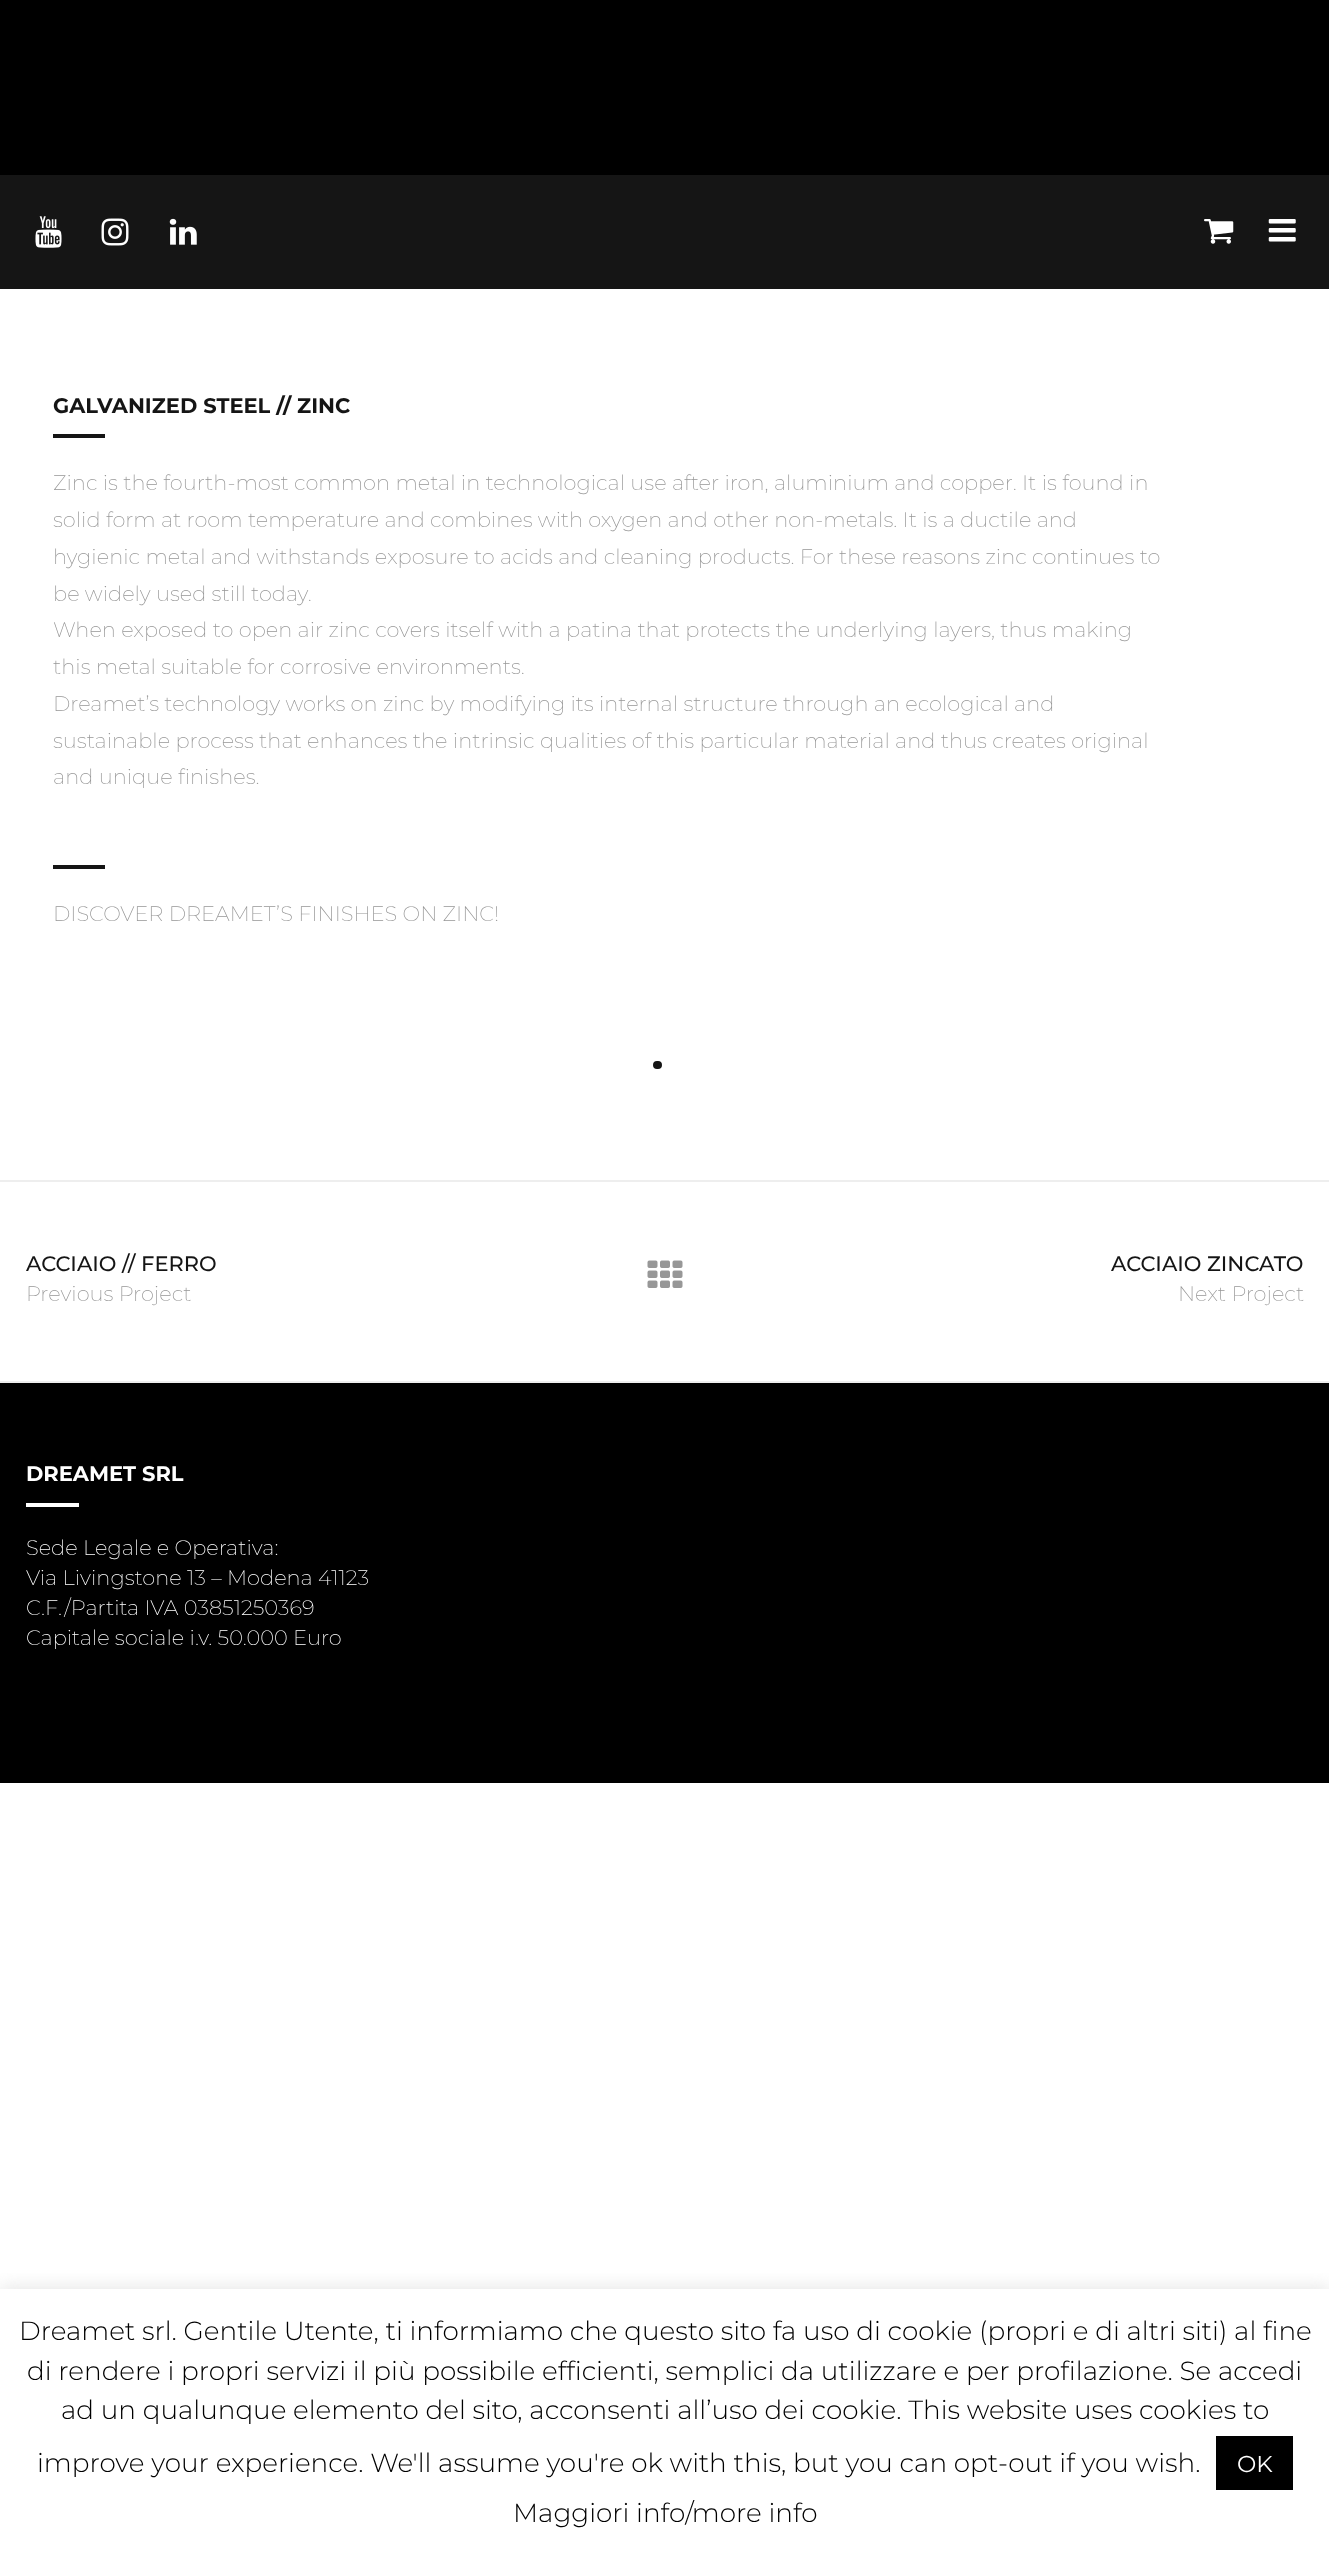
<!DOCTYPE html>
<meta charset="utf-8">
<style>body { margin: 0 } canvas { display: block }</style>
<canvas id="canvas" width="1329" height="2551"></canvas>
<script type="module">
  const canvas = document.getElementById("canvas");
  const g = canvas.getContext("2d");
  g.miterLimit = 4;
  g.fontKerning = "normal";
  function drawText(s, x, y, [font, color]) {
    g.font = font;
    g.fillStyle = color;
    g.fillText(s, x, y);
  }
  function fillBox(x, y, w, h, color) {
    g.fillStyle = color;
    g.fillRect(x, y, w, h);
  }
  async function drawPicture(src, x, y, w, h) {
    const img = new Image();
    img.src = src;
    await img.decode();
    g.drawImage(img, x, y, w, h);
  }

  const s1 = ["bold 21px Montserrat", "#151515"];
  const s2 = ["200 21px Montserrat", "#979797"];
  const s3 = ["500 21px Montserrat", "#151515"];
  const s4 = ["bold 21px Montserrat", "#FFFFFF"];
  const s5 = ["200 21px Montserrat", "#FFFFFF"];
  const s6 = ["300 26.25px Montserrat", "#000000"];
  const s7 = ["23px Montserrat", "#FFFFFF"];

  fillBox(0, 0, 1329, 2551, "#FFFFFF");
  fillBox(0, 0, 1329, 175, "#000000");
  fillBox(0, 175, 1329, 114, "#151515");
  await drawPicture("pic1.png", 35, 216, 27, 32);
  await drawPicture("pic2.png", 101, 218, 28, 28);
  await drawPicture("pic3.png", 169, 218, 28, 27);
  await drawPicture("pic4.png", 1204, 219, 30, 25);
  await drawPicture("pic5.png", 1268, 219, 28, 23);
  drawText("GALVANIZED STEEL // ZINC", 53, 413, s1);
  fillBox(53, 434, 52, 4, "#151515");
  drawText("Zinc is the fourth-most common metal in technological use after iron, aluminium and copper. It is found in", 53, 490, s2);
  drawText("solid form at room temperature and combines with oxygen and other non-metals. It is a ductile and", 53, 527, s2);
  drawText("hygienic metal and withstands exposure to acids and cleaning products. For these reasons zinc continues to", 53, 564, s2);
  drawText("be widely used still today.", 53, 601, s2);
  drawText("When exposed to open air zinc covers itself with a patina that protects the underlying layers, thus making", 53, 637, s2);
  drawText("this metal suitable for corrosive environments.", 53, 674, s2);
  drawText("Dreamet’s technology works on zinc by modifying its internal structure through an ecological and", 53, 711, s2);
  drawText("sustainable process that enhances the intrinsic qualities of this particular material and thus creates original", 53, 748, s2);
  drawText("and unique finishes.", 53, 784, s2);
  fillBox(53, 865, 52, 4, "#151515");
  drawText("DISCOVER DREAMET’S FINISHES ON ZINC!", 53, 921, s2);
  g.beginPath();
  g.roundRect(655, 1063, 5, 4, 2);
  g.strokeStyle = "#151515";
  g.lineWidth = 4;
  g.stroke();
  fillBox(0, 1180, 1329, 2, "#EEEEEE");
  fillBox(0, 1381, 1329, 2, "#EEEEEE");
  drawText("ACCIAIO // FERRO", 26, 1271, s3);
  drawText("Previous Project", 26, 1301, s2);
  await drawPicture("pic6.png", 647, 1260, 36, 28);
  drawText("ACCIAIO ZINCATO", 1111, 1271, s3);
  drawText("Next Project", 1178, 1301, s2);
  fillBox(0, 1383, 1329, 400, "#000000");
  drawText("DREAMET SRL", 26, 1481, s4);
  fillBox(26, 1503, 53, 4, "#FFFFFF");
  drawText("Sede Legale e Operativa:", 26, 1555, s5);
  drawText("Via Livingstone 13 – Modena 41123", 26, 1585, s5);
  drawText("C.F./Partita IVA 03851250369", 26, 1615, s5);
  drawText("Capitale sociale i.v. 50.000 Euro", 26, 1645, s5);
  g.save();
  g.beginPath();
  g.rect(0, 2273, 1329, 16);
  g.clip();
  g.fillStyle = "rgba(172, 171, 171, 0.3)";
  g.filter = "blur(9px)";
  g.beginPath();
  g.rect(0, 2287, 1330, 263);
  g.fill();
  g.filter = "none";
  g.restore();
  drawText("Dreamet srl. Gentile Utente, ti informiamo che questo sito fa uso di cookie (propri e di altri siti) al fine", 19, 2340, s6);
  drawText("di rendere i propri servizi il più possibile efficienti, semplici da utilizzare e per profilazione. Se accedi", 27, 2380, s6);
  drawText("ad un qualunque elemento del sito, acconsenti all’uso dei cookie. This website uses cookies to", 61, 2419, s6);
  drawText("improve your experience. We'll assume you're ok with this, but you can opt-out if you wish.", 37, 2472, s6);
  fillBox(1216, 2436, 77, 54, "#000000");
  drawText("OK", 1237, 2472, s7);
  drawText("Maggiori info/more info", 513, 2522, s6);
</script>
